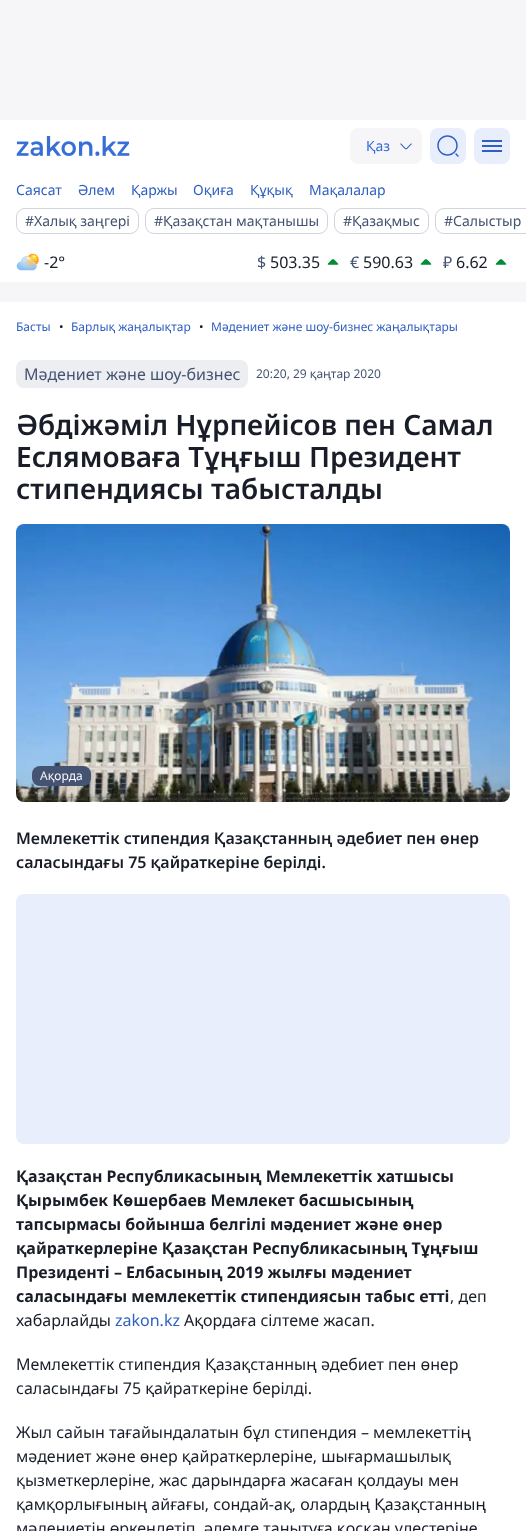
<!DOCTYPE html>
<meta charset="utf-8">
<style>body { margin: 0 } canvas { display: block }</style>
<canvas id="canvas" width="526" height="1531"></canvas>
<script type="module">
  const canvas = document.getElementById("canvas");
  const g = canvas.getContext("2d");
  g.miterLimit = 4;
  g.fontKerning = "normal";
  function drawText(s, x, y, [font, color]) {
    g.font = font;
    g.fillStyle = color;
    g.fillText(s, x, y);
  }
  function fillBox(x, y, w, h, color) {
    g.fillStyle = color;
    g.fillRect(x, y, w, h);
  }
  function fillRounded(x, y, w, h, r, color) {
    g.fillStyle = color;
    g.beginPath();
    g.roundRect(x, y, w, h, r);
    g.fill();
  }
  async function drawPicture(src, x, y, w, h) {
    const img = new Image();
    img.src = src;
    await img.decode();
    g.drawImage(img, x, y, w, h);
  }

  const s1 = ["14px Noto Sans", "#356BDB"];
  const s2 = ["14px Noto Sans", "#2F5FC2"];
  const s3 = ["14px Noto Sans", "#445371"];
  const s4 = ["16px Noto Sans", "#181D28"];
  const s5 = ["16px Noto Sans", "#445371"];
  const s6 = ["12px Noto Sans", "#2F5FC2"];
  const s7 = ["12px Noto Sans", "#181D28"];
  const s8 = ["12px Noto Sans", "#445371"];
  const s9 = ["600 28px Noto Sans", "#181D28"];
  const s10 = ["12px Noto Sans", "#F9FAFB"];
  const s11 = ["600 16px Noto Sans", "#181D28"];
  const s12 = ["bold 16px Noto Sans", "#181D28"];
  const s13 = ["16px Noto Sans", "#2F5FC2"];

  fillBox(0, 0, 526, 1531, "#F6F6F8");
  fillBox(0, 120, 526, 162, "#FFFFFF");
  await drawPicture("pic1.png", 16, 136, 114, 20);
  fillRounded(350, 128, 72, 36, 8, "#F6F6F8");
  drawText("Қаз", 366, 151, s1);
  await drawPicture("pic2.png", 400, 143, 12, 7);
  fillRounded(430, 128, 36, 36, 8, "#E8EEFB");
  await drawPicture("pic3.png", 437, 135, 22, 22);
  fillRounded(474, 128, 36, 36, 8, "#E8EEFB");
  fillBox(482, 140, 20, 2, "#2F5FC2");
  fillBox(482, 145, 20, 2, "#2F5FC2");
  fillBox(482, 150, 20, 2, "#2F5FC2");
  drawText("Саясат", 16, 195, s2);
  drawText("Әлем", 78, 195, s2);
  drawText("Қаржы", 131, 195, s2);
  drawText("Оқиға", 193, 195, s2);
  drawText("Құқық", 250, 195, s2);
  drawText("Мақалалар", 309, 195, s2);
  g.beginPath();
  g.roundRect(16.5, 208.5, 122, 25, 8.5);
  g.strokeStyle = "#D0D4DC";
  g.stroke();
  drawText("#Халық заңгері", 25, 226, s3);
  g.beginPath();
  g.roundRect(145.5, 208.5, 182, 25, 8.5);
  g.stroke();
  drawText("#Қазақстан мақтанышы", 154, 226, s3);
  g.beginPath();
  g.roundRect(334.5, 208.5, 94, 25, 8.5);
  g.stroke();
  drawText("#Қазақмыс", 343, 226, s3);
  g.beginPath();
  g.roundRect(435.5, 208.5, 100, 25, 8.5);
  g.stroke();
  drawText("#Салыстыр", 444, 226, s3);
  await drawPicture("pic4.png", 16, 253, 24, 18);
  drawText("-2°", 44, 268, s4);
  drawText("$", 257, 268, s5);
  drawText("503.35", 270, 268, s4);
  await drawPicture("pic5.png", 327, 259, 12, 6);
  drawText("€", 350, 268, s5);
  drawText("590.63", 363, 268, s4);
  await drawPicture("pic5.png", 420, 259, 12, 6);
  drawText("₽", 443, 268, s5);
  drawText("6.62", 456, 268, s4);
  await drawPicture("pic5.png", 495, 259, 12, 6);
  fillBox(0, 302, 526, 1229, "#FFFFFF");
  drawText("Басты", 16, 331, s6);
  drawText("•", 59, 331, s7);
  drawText("Барлық жаңалықтар", 71, 331, s6);
  drawText("•", 199, 331, s7);
  drawText("Мәдениет және шоу-бизнес жаңалықтары", 211, 331, s6);
  fillRounded(16, 360, 232, 28, 8, "#ECEEF1");
  drawText("Мәдениет және шоу-бизнес", 24, 380, s5);
  drawText("20:20, 29 қаңтар 2020", 256, 378, s8);
  drawText("Әбдіжәміл Нұрпейісов пен Самал", 16, 435, s9);
  drawText("Еслямоваға Тұңғыш Президент", 16, 467, s9);
  drawText("стипендиясы табысталды", 16, 499, s9);
  await drawPicture("pic6.png", 16, 524, 494, 278);
  fillRounded(32, 766, 59, 20, 8, "#445371");
  drawText("Ақорда", 40, 780, s10);
  drawText("Мемлекеттік стипендия Қазақстанның әдебиет пен өнер", 16, 844, s11);
  drawText("саласындағы 75 қайраткеріне берілді.", 16, 868, s11);
  fillRounded(16, 894, 494, 250, 8, "#E8EEFB");
  drawText("Қазақстан Республикасының Мемлекеттік хатшысы", 16, 1182, s12);
  drawText("Қырымбек Көшербаев Мемлекет басшысының", 16, 1206, s12);
  drawText("тапсырмасы бойынша белгілі мәдениет және өнер", 16, 1230, s12);
  drawText("қайраткерлеріне Қазақстан Республикасының Тұңғыш", 16, 1254, s12);
  drawText("Президенті – Елбасының 2019 жылғы мәдениет", 16, 1278, s12);
  drawText("саласындағы мемлекеттік стипендиясын табыс етті", 16, 1302, s12);
  drawText(", деп", 450, 1302, s4);
  drawText("хабарлайды", 16, 1326, s4);
  drawText("zakon.kz", 115, 1326, s13);
  drawText("Ақордаға сілтеме жасап.", 184, 1326, s4);
  drawText("Мемлекеттік стипендия Қазақстанның әдебиет пен өнер", 16, 1370, s4);
  drawText("саласындағы 75 қайраткеріне берілді.", 16, 1394, s4);
  drawText("Жыл сайын тағайындалатын бұл стипендия – мемлекеттің", 16, 1438, s4);
  drawText("мәдениет және өнер қайраткерлеріне, шығармашылық", 16, 1462, s4);
  drawText("қызметкерлеріне, жас дарындарға жасаған қолдауы мен", 16, 1486, s4);
  drawText("қамқорлығының айғағы, сондай-ақ, олардың Қазақстанның", 16, 1510, s4);
  drawText("мәдениетін өркендетіп, әлемге танытуға қосқан үлестеріне", 16, 1534, s4);
</script>
